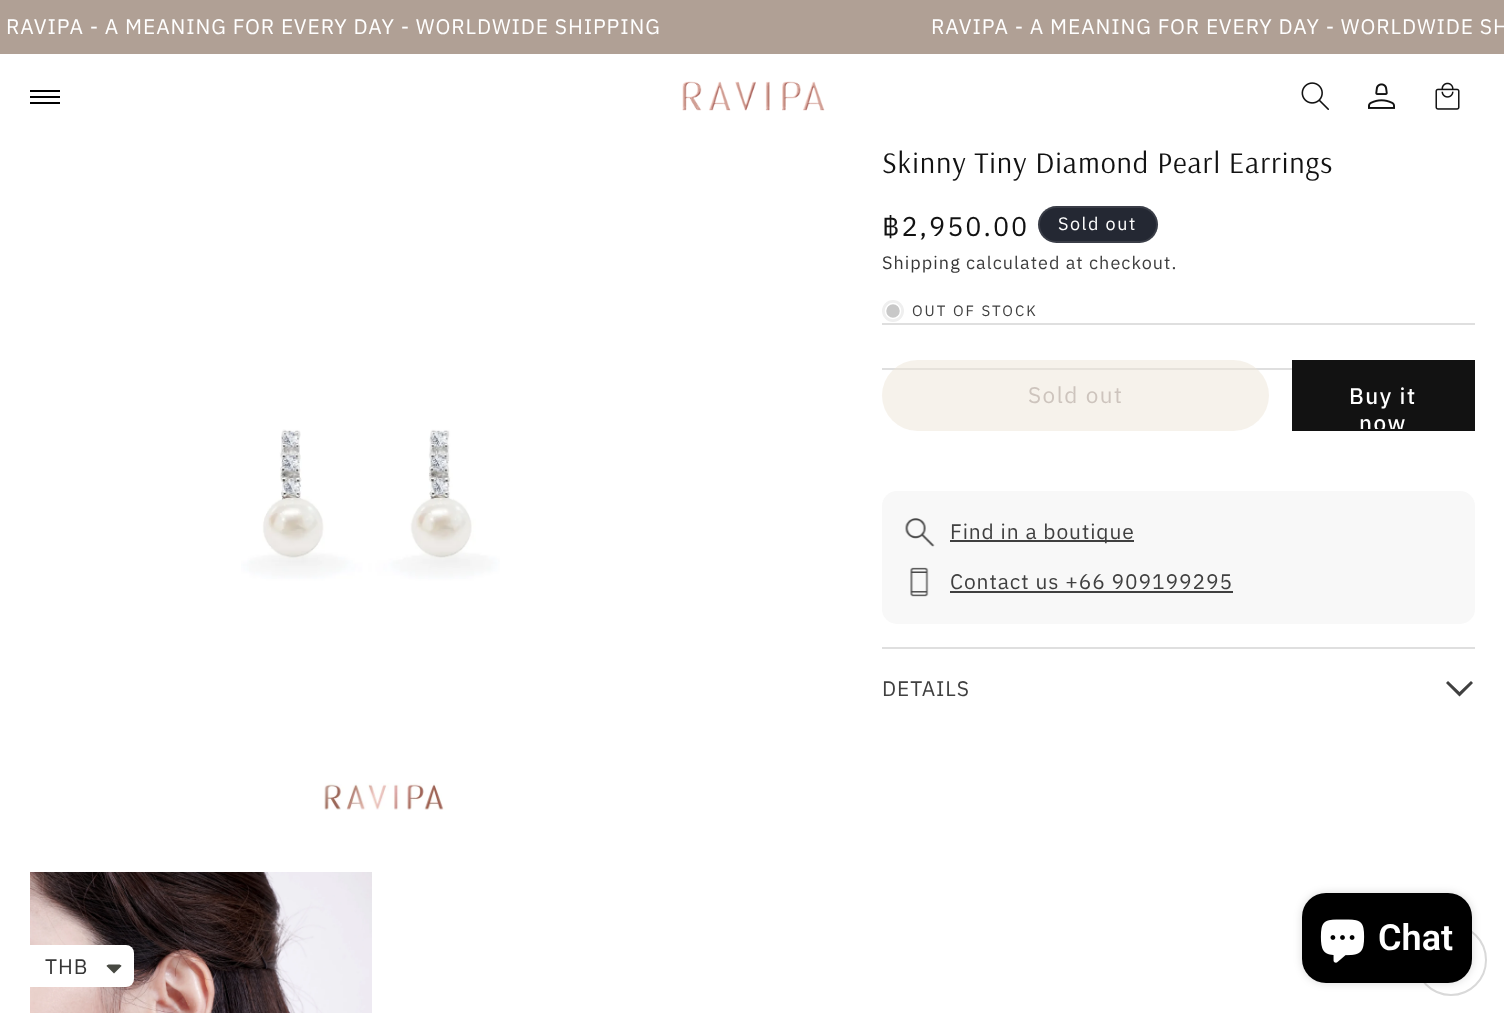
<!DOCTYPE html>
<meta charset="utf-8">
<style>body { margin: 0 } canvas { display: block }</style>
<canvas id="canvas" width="1504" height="1013"></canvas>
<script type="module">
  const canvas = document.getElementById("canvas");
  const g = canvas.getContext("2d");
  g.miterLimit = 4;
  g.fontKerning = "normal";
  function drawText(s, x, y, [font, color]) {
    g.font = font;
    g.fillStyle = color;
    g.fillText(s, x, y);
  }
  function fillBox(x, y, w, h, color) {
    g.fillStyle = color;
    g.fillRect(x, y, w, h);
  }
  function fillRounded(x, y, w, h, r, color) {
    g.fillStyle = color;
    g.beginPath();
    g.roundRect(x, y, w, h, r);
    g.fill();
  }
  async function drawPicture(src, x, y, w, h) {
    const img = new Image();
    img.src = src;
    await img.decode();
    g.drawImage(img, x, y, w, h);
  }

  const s1 = ["21px Anuphan", "#FFFFFF"];
  const s2 = ["30px Arsenal", "#121212"];
  const s3 = ["27px Anuphan", "#121212"];
  const s4 = ["18px Anuphan", "#FFFFFF"];
  const s5 = ["18px Anuphan", "#363636"];
  const s6 = ["18px Anuphan", "#404040"];
  const s7 = ["15px Anuphan", "#404040"];
  const s8 = ["22.5px Anuphan", "#CDC4BD"];
  const s9 = ["500 22.5px Anuphan", "#FFFFFF"];
  const s10 = ["21px Anuphan", "#404040"];
  const s11 = ["600 36px Roboto", "#FFFFFF"];
  const s12 = ["21px Anuphan", "#363636"];

  fillBox(0, 0, 1504, 1013, "#FFFFFF");
  fillBox(0, 0, 1504, 54, "#B0A095");
  g.letterSpacing = "0.9px";
  drawText("RAVIPA - A MEANING FOR EVERY DAY - WORLDWIDE SHIPPING", 6, 34, s1);
  drawText("RAVIPA - A MEANING FOR EVERY DAY - WORLDWIDE SH", 931, 34, s1);
  fillBox(30, 90, 30, 2, "#000000");
  fillBox(30, 96, 30, 2, "#000000");
  fillBox(30, 102, 30, 2, "#000000");
  await drawPicture("pic1.png", 682, 81, 143, 30);
  await drawPicture("pic2.png", 1301, 82, 28, 28);
  await drawPicture("pic3.png", 1368, 83, 27, 26);
  await drawPicture("pic4.png", 1435, 82, 25, 28);
  await drawPicture("pic5.png", 241, 429, 259, 381);
  await drawPicture("pic6.png", 30, 872, 342, 141);
  fillBox(882, 323, 593, 2, "#DFDFDF");
  fillBox(882, 368, 410, 2, "#DFDFDF");
  drawText("Skinny Tiny Diamond Pearl Earrings", 882, 173, s2);
  g.letterSpacing = "2px";
  drawText("฿2,950.00", 882, 236, s3);
  fillRounded(1038, 206, 120, 37, 18.5, "#242833");
  g.beginPath();
  g.roundRect(1039, 207, 118, 35, 17.5);
  g.strokeStyle = "rgba(255, 255, 255, 0.1)";
  g.lineWidth = 2;
  g.stroke();
  g.letterSpacing = "1.5px";
  drawText("Sold out", 1058, 230, s4);
  g.letterSpacing = "1.05px";
  drawText("Shipping", 882, 269, s5);
  drawText("calculated at checkout.", 966, 269, s6);
  g.fillStyle = "#EFEFEF";
  g.beginPath();
  g.arc(893, 311, 11, 0, Math.PI * 2);
  g.fill();
  g.fillStyle = "#C8C8C8";
  g.beginPath();
  g.arc(893, 311, 7.5, 0, Math.PI * 2);
  g.fill();
  g.strokeStyle = "#FFFFFF";
  g.lineWidth = 1.5;
  g.stroke();
  g.letterSpacing = "2px";
  drawText("OUT OF STOCK", 912, 316, s7);
  fillRounded(882, 360, 387, 71, 35.5, "rgba(238, 229, 216, 0.5)");
  g.letterSpacing = "1.5px";
  drawText("Sold out", 1028, 403, s8);
  fillBox(1294, 362, 179, 67, "#121212");
  drawText("now", 1359, 431, s9);
  g.strokeStyle = "#121212";
  g.lineWidth = 2;
  g.strokeRect(1293, 361, 181, 69);
  drawText("Buy it", 1349, 404, s9);
  fillBox(882, 647, 593, 2, "#DFDFDF");
  fillRounded(882, 491, 593, 133, 15, "#F8F8F8");
  await drawPicture("pic7.png", 905, 518, 30, 29);
  fillBox(950, 540, 184, 2, "#404040");
  g.letterSpacing = "0.9px";
  drawText("Find in a boutique", 950, 539, s10);
  await drawPicture("pic8.png", 910, 567, 19, 30);
  drawText("Contact us +66 909199295", 950, 589, s10);
  fillBox(950, 591, 283, 2, "#404040");
  drawText("DETAILS", 882, 696, s10);
  g.beginPath();
  g.moveTo(1459.5, 696.5);
  g.lineTo(1446, 683);
  g.lineTo(1448, 681);
  g.lineTo(1459.5, 692);
  g.lineTo(1471, 681);
  g.lineTo(1473, 683);
  g.closePath();
  g.fill();
  g.beginPath();
  g.arc(1451, 960, 35, 0, Math.PI * 2);
  g.strokeStyle = "#D9D9D9";
  g.stroke();
  g.fillStyle = "rgba(0, 0, 0, 0.15)";
  g.filter = "blur(4px)";
  g.beginPath();
  g.roundRect(1302, 893, 170, 90, 24);
  g.fill();
  g.filter = "none";
  fillRounded(1302, 893, 170, 90, 24, "#000000");
  await drawPicture("pic9.png", 1320, 919, 45, 44);
  g.letterSpacing = "0px";
  drawText("Chat", 1378, 950, s11);
  fillRounded(18, 945, 116, 42, 8, "#FFFFFF");
  g.letterSpacing = "0.9px";
  drawText("THB", 45, 974, s12);
  g.fillStyle = "#474942";
  g.beginPath();
  g.moveTo(109.5, 964.5);
  g.bezierCurveTo(108, 964.5, 107, 965, 106.5, 966);
  g.lineTo(114, 973.5);
  g.lineTo(121.5, 966);
  g.bezierCurveTo(121, 965, 120, 964.5, 118.5, 964.5);
  g.closePath();
  g.fill();
</script>
